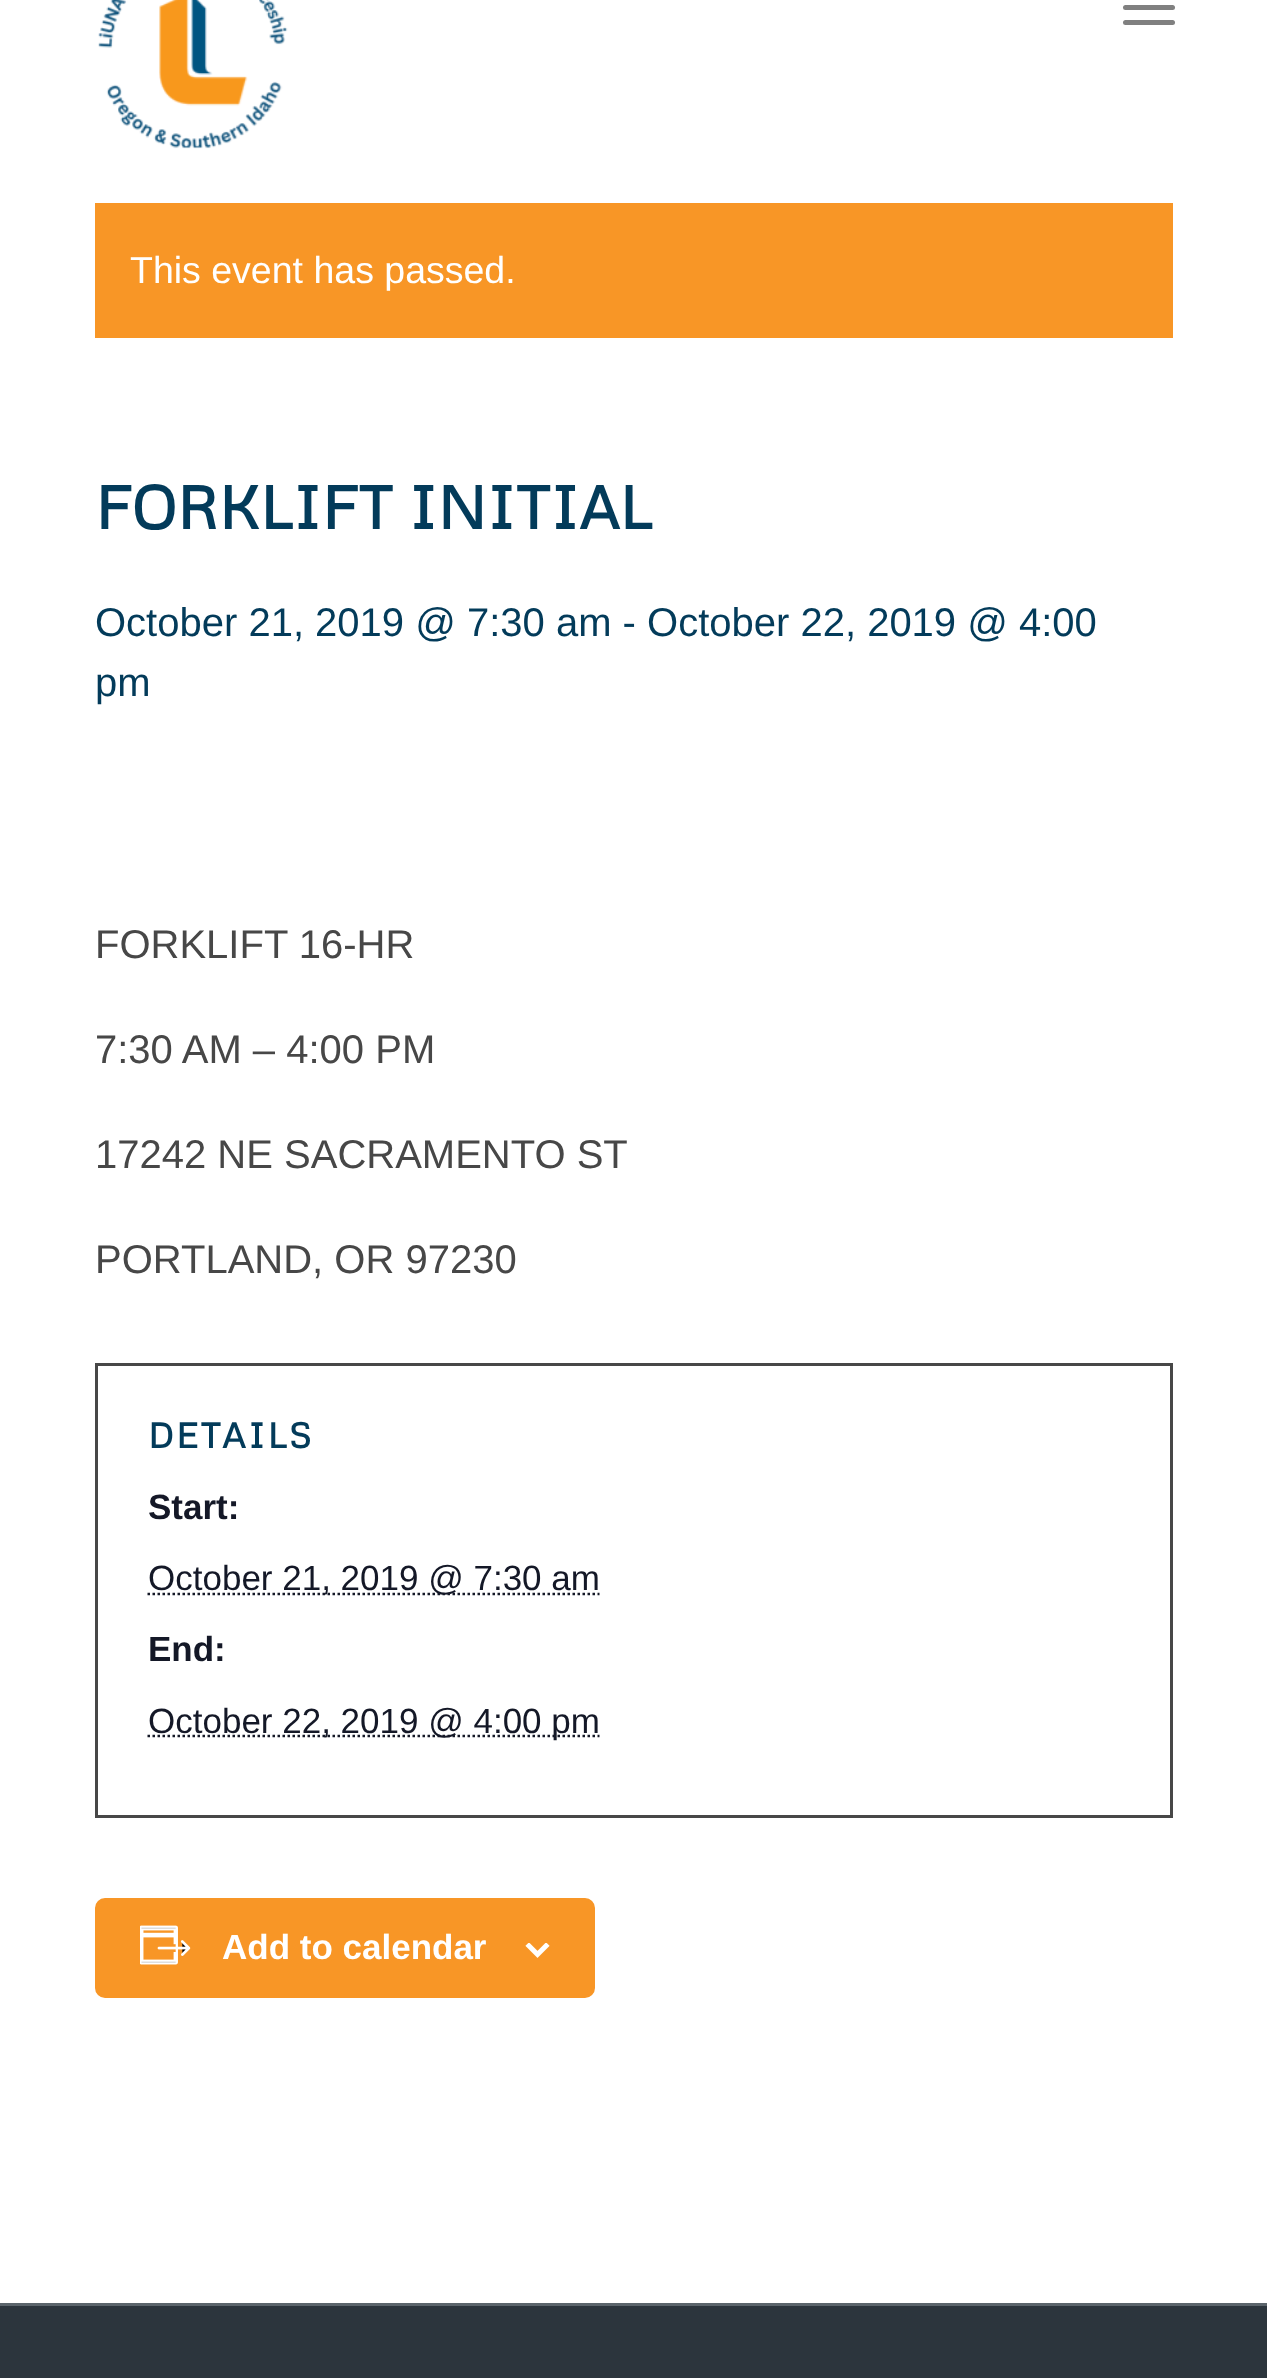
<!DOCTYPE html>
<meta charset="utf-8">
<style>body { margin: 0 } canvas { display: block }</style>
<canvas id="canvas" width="1267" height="2378"></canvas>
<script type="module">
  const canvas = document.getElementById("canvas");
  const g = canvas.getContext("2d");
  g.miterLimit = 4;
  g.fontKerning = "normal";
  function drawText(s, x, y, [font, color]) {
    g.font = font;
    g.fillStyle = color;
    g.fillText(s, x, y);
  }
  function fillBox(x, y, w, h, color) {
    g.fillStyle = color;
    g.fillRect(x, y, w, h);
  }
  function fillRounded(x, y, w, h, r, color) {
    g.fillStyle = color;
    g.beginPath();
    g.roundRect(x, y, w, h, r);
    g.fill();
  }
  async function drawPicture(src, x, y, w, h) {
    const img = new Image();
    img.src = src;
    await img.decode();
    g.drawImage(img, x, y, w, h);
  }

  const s1 = ["37.5px Liberation Sans", "#FFFFFF"];
  const s2 = ["bold 60px Metrophobic", "#033B5A"];
  const s3 = ["40px Liberation Sans", "#033B5A"];
  const s4 = ["40px Liberation Sans", "#474747"];
  const s5 = ["bold 35px Metrophobic", "#033B5A"];
  const s6 = ["bold 35px Liberation Sans", "#141827"];
  const s7 = ["35px Liberation Sans", "#141827"];
  const s8 = ["bold 35px Liberation Sans", "#FFFFFF"];

  fillBox(0, 0, 1267, 2378, "#FFFFFF");
  await drawPicture("pic1.png", 98, 0, 190, 149);
  fillRounded(1123, 5, 52, 5, 2.5, "#808080");
  fillRounded(1123, 20, 52, 5, 2.5, "#808080");
  fillBox(95, 203, 1078, 135, "#F89626");
  drawText("This event has passed.", 130, 283, s1);
  drawText("FORKLIFT INITIAL", 95, 529, s2);
  drawText("October 21, 2019 @ 7:30 am - October 22, 2019 @ 4:00", 95, 636, s3);
  drawText("pm", 95, 696, s3);
  drawText("FORKLIFT 16-HR", 95, 958, s4);
  drawText("7:30 AM – 4:00 PM", 95, 1063, s4);
  drawText("17242 NE SACRAMENTO ST", 95, 1168, s4);
  drawText("PORTLAND, OR 97230", 95, 1273, s4);
  g.strokeStyle = "#474747";
  g.lineWidth = 3;
  g.strokeRect(96.5, 1364.5, 1075, 452);
  g.letterSpacing = "2.5px";
  drawText("DETAILS", 148, 1448, s5);
  g.letterSpacing = "0px";
  drawText("Start:", 148, 1519, s6);
  g.beginPath();
  g.moveTo(147.5, 1594);
  g.lineTo(599.5, 1594);
  g.strokeStyle = "#141827";
  g.lineWidth = 2.5;
  g.setLineDash([2.5, 2.5]);
  g.stroke();
  drawText("October 21, 2019 @ 7:30 am", 148, 1590, s7);
  drawText("End:", 148, 1661, s6);
  g.beginPath();
  g.moveTo(147.5, 1736);
  g.lineTo(599.5, 1736);
  g.stroke();
  drawText("October 22, 2019 @ 4:00 pm", 148, 1733, s7);
  g.fillStyle = "#F89626";
  g.beginPath();
  g.roundRect(96.5, 1899.5, 497, 97, 8.5);
  g.fill();
  g.strokeStyle = "#F89626";
  g.lineWidth = 3;
  g.setLineDash([]);
  g.stroke();
  await drawPicture("pic2.png", 140, 1925, 51, 40);
  drawText("Add to calendar", 222, 1959, s8);
  await drawPicture("pic3.png", 525, 1943, 25, 15);
  fillBox(0, 2306, 1267, 72, "#2C353D");
  fillBox(0, 2303, 1267, 3, "#5B646B");
</script>
